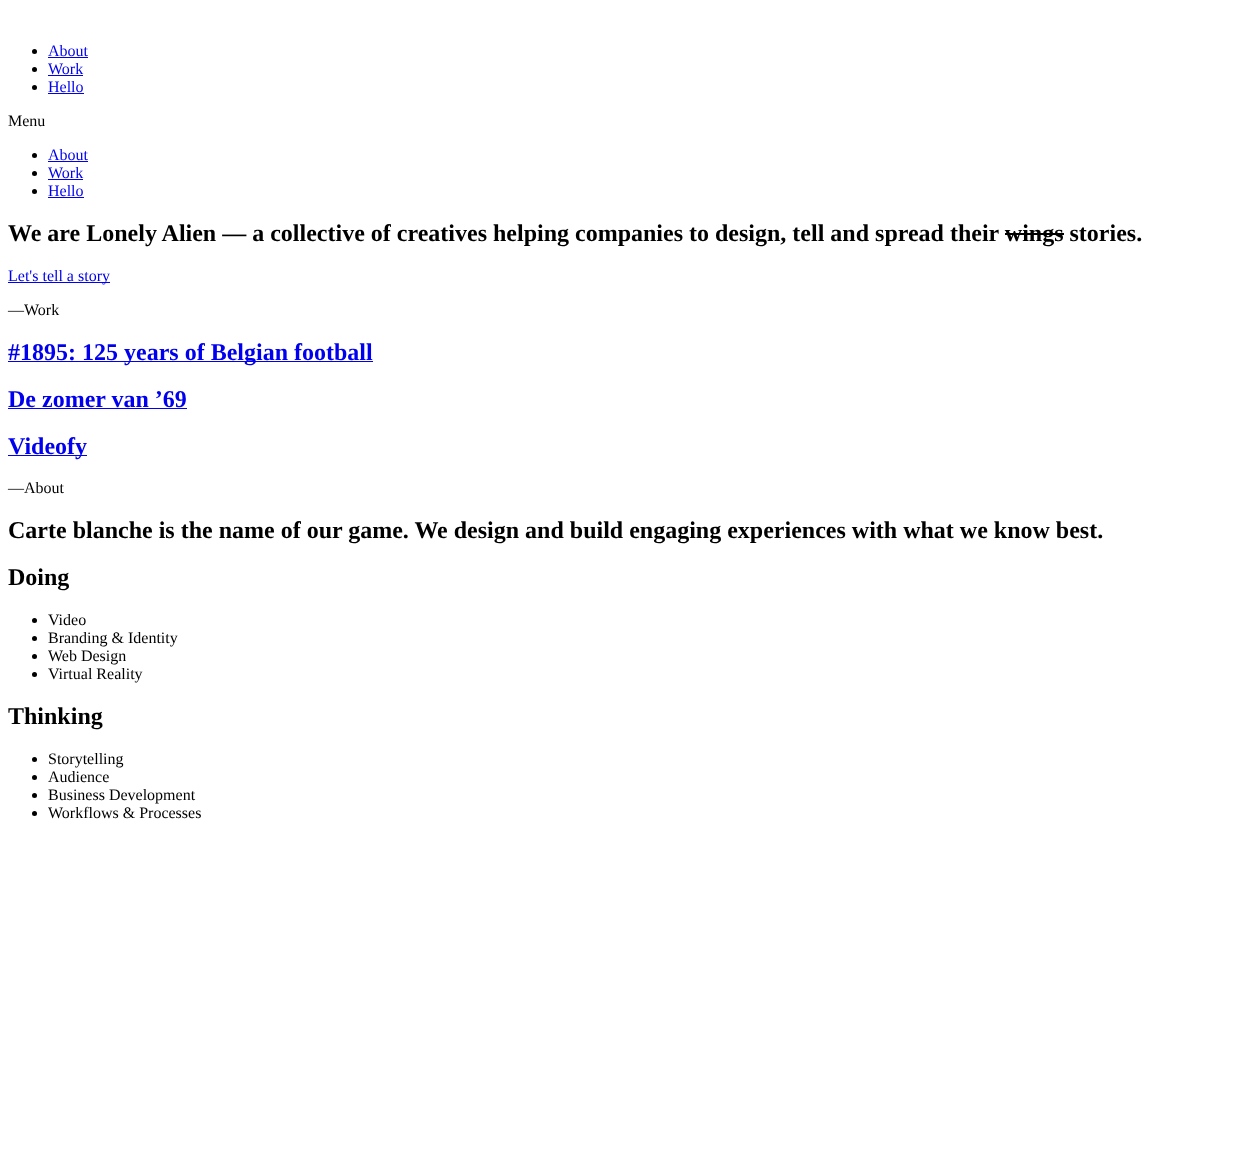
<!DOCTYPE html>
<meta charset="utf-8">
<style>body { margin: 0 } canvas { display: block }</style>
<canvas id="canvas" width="1245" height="1162"></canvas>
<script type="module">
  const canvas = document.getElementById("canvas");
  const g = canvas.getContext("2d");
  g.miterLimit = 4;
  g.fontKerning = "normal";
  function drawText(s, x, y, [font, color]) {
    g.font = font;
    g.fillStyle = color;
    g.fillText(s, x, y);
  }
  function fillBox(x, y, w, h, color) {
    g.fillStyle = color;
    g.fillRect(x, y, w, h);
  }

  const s1 = ["16px Liberation Serif", "#0000EE"];
  const s2 = ["16px Liberation Serif", "#000000"];
  const s3 = ["bold 24px Liberation Serif", "#000000"];
  const s4 = ["bold 24px Liberation Serif", "#0000EE"];

  fillBox(0, 0, 1245, 1162, "#FFFFFF");
  g.fillStyle = "#000000";
  g.beginPath();
  g.arc(34.5, 51.5, 2.5, 0, Math.PI * 2);
  g.fill();
  drawText("About", 48, 56, s1);
  fillBox(48, 57, 40, 1, "#0000EE");
  g.fillStyle = "#000000";
  g.beginPath();
  g.arc(34.5, 69.5, 2.5, 0, Math.PI * 2);
  g.fill();
  drawText("Work", 48, 74, s1);
  fillBox(48, 75, 35, 1, "#0000EE");
  g.fillStyle = "#000000";
  g.beginPath();
  g.arc(34.5, 87.5, 2.5, 0, Math.PI * 2);
  g.fill();
  drawText("Hello", 48, 92, s1);
  fillBox(48, 93, 36, 1, "#0000EE");
  drawText("Menu", 8, 126, s2);
  g.beginPath();
  g.arc(34.5, 155.5, 2.5, 0, Math.PI * 2);
  g.fill();
  drawText("About", 48, 160, s1);
  fillBox(48, 161, 40, 1, "#0000EE");
  g.fillStyle = "#000000";
  g.beginPath();
  g.arc(34.5, 173.5, 2.5, 0, Math.PI * 2);
  g.fill();
  drawText("Work", 48, 178, s1);
  fillBox(48, 179, 35, 1, "#0000EE");
  g.fillStyle = "#000000";
  g.beginPath();
  g.arc(34.5, 191.5, 2.5, 0, Math.PI * 2);
  g.fill();
  drawText("Hello", 48, 196, s1);
  fillBox(48, 197, 36, 1, "#0000EE");
  drawText("We are Lonely Alien — a collective of creatives helping companies to design, tell and spread their wings stories.", 8, 241, s3);
  fillBox(1005, 233, 59, 2, "#000000");
  fillBox(8, 282, 102, 1, "#0000EE");
  drawText("Let's tell a story", 8, 281, s1);
  drawText("—Work", 8, 315, s2);
  fillBox(8, 361, 365, 1, "#0000EE");
  drawText("#1895: 125 years of Belgian football", 8, 360, s4);
  drawText("De zomer van ’69", 8, 407, s4);
  fillBox(8, 408, 179, 1, "#0000EE");
  fillBox(8, 455, 79, 1, "#0000EE");
  drawText("Videofy", 8, 454, s4);
  drawText("—About", 8, 493, s2);
  drawText("Carte blanche is the name of our game. We design and build engaging experiences with what we know best.", 8, 538, s3);
  drawText("Doing", 8, 585, s3);
  g.beginPath();
  g.arc(34.5, 620.5, 2.5, 0, Math.PI * 2);
  g.fill();
  drawText("Video", 48, 625, s2);
  g.beginPath();
  g.arc(34.5, 638.5, 2.5, 0, Math.PI * 2);
  g.fill();
  drawText("Branding & Identity", 48, 643, s2);
  g.beginPath();
  g.arc(34.5, 656.5, 2.5, 0, Math.PI * 2);
  g.fill();
  drawText("Web Design", 48, 661, s2);
  g.beginPath();
  g.arc(34.5, 674.5, 2.5, 0, Math.PI * 2);
  g.fill();
  drawText("Virtual Reality", 48, 679, s2);
  drawText("Thinking", 8, 724, s3);
  g.beginPath();
  g.arc(34.5, 759.5, 2.5, 0, Math.PI * 2);
  g.fill();
  drawText("Storytelling", 48, 764, s2);
  g.beginPath();
  g.arc(34.5, 777.5, 2.5, 0, Math.PI * 2);
  g.fill();
  drawText("Audience", 48, 782, s2);
  g.beginPath();
  g.arc(34.5, 795.5, 2.5, 0, Math.PI * 2);
  g.fill();
  drawText("Business Development", 48, 800, s2);
  g.beginPath();
  g.arc(34.5, 813.5, 2.5, 0, Math.PI * 2);
  g.fill();
  drawText("Workflows & Processes", 48, 818, s2);
</script>
